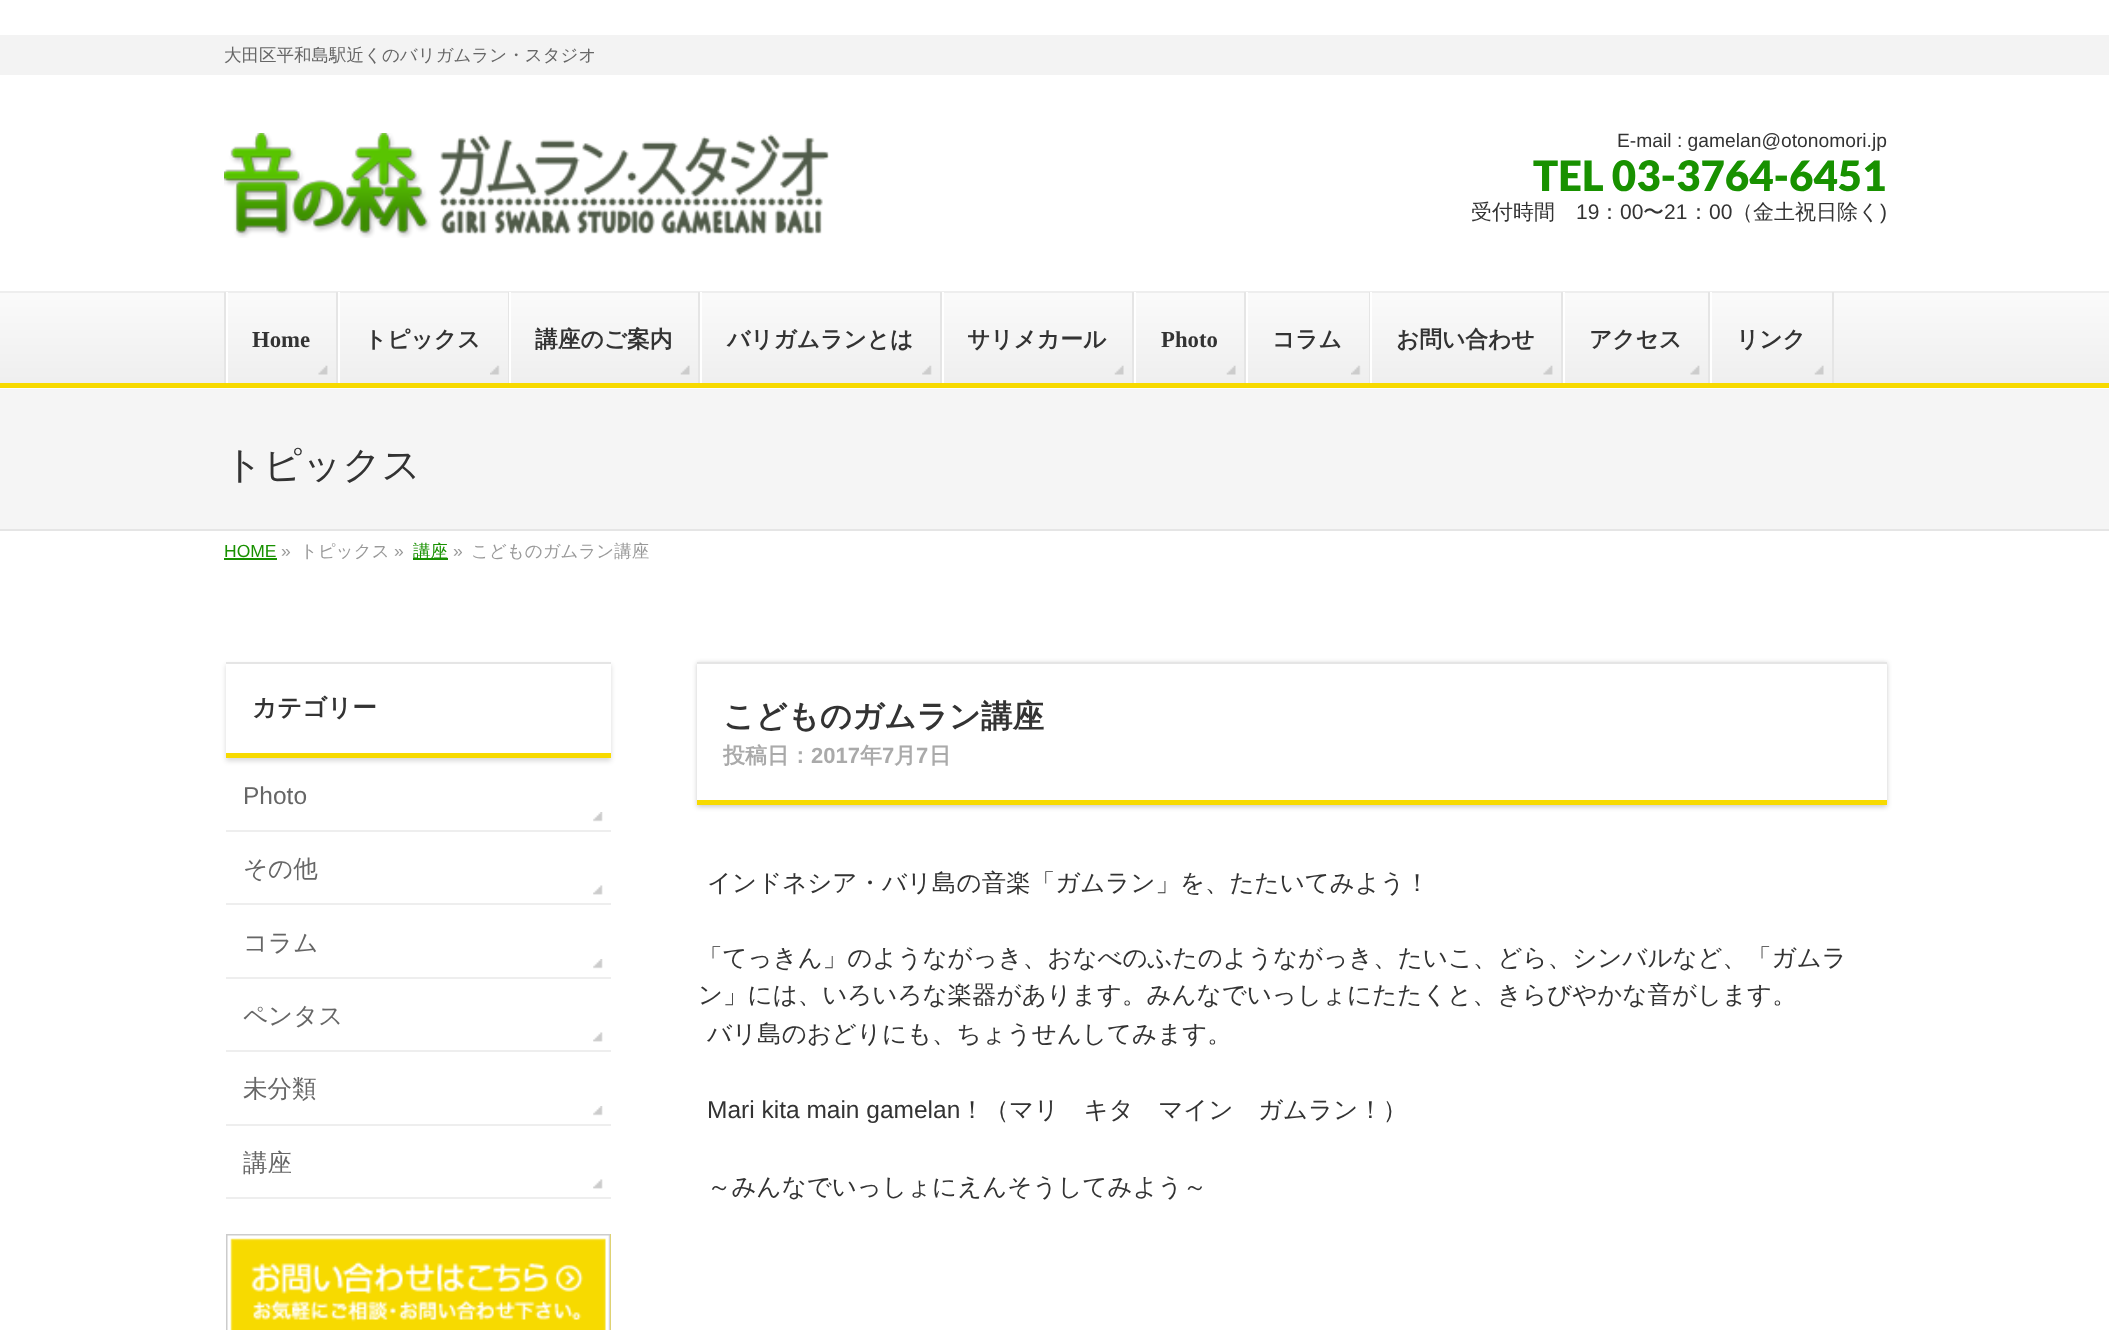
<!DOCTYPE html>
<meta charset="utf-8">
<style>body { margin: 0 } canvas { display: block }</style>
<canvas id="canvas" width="2109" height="1330"></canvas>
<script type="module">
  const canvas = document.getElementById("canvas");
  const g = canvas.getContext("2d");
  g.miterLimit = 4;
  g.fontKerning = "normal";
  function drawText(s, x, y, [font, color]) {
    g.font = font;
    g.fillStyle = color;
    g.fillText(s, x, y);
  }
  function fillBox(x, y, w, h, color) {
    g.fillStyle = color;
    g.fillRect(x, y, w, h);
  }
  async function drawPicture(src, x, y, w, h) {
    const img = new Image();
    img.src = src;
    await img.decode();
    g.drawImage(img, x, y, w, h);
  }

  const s1 = ["500 17.5px WenQuanYi Zen Hei", "#666666"];
  const s2 = ["19.25px Liberation Sans", "#333333"];
  const s3 = ["900 42px Lato", "#189100"];
  const s4 = ["500 21px WenQuanYi Zen Hei", "#333333"];
  const s5 = ["21px Liberation Sans", "#333333"];
  const s6 = ["bold 22.75px Liberation Serif", "#333333"];
  const s7 = ["bold 22.75px WenQuanYi Zen Hei", "#333333"];
  const s8 = ["500 38.5px WenQuanYi Zen Hei", "#333333"];
  const s9 = ["17.5px Liberation Sans", "#189100"];
  const s10 = ["17.5px Liberation Sans", "#999999"];
  const s11 = ["500 17.5px WenQuanYi Zen Hei", "#999999"];
  const s12 = ["500 17.5px WenQuanYi Zen Hei", "#189100"];
  const s13 = ["bold 24.5px WenQuanYi Zen Hei", "#333333"];
  const s14 = ["24.5px Liberation Sans", "#666666"];
  const s15 = ["500 24.5px WenQuanYi Zen Hei", "#666666"];
  const s16 = ["bold 31.5px WenQuanYi Zen Hei", "#333333"];
  const s17 = ["bold 22px WenQuanYi Zen Hei", "#AAAAAA"];
  const s18 = ["bold 22px Liberation Sans", "#AAAAAA"];
  const s19 = ["500 24.5px WenQuanYi Zen Hei", "#333333"];
  const s20 = ["24.5px Liberation Sans", "#333333"];

  fillBox(0, 0, 2109, 1330, "#FFFFFF");
  fillBox(0, 35, 2109, 40, "#F3F3F3");
  drawText("大田区平和島駅近くのバリガムラン・スタジオ", 224, 61, s1);
  await drawPicture("pic1.png", 224, 133, 605, 105);
  drawText("E-mail : gamelan@otonomori.jp", 1617, 147, s2);
  drawText("TEL 03-3764-6451", 1533, 191, s3);
  drawText("受付時間", 1471, 219, s4);
  drawText("19", 1576, 219, s5);
  drawText("：", 1599, 219, s4);
  drawText("00", 1620, 219, s5);
  drawText("〜", 1643, 219, s4);
  drawText("21", 1664, 219, s5);
  drawText("：", 1688, 219, s4);
  drawText("00", 1709, 219, s5);
  drawText("（金土祝日除く", 1732, 219, s4);
  drawText(")", 1880, 219, s5);
  await drawPicture("pic2.png", 0, 293, 2109, 90);
  fillBox(0, 291, 2109, 2, "#EEEEEE");
  fillBox(0, 383, 2109, 5, "#F7DA00");
  fillBox(224, 292, 2, 91, "#E5E5E5");
  fillBox(226, 292, 2, 91, "#FFFFFF");
  await drawPicture("pic3.png", 318, 365, 10, 10);
  fillBox(336, 292, 2, 91, "#E5E5E5");
  drawText("Home", 252, 347, s6);
  fillBox(338, 292, 2, 91, "#FFFFFF");
  await drawPicture("pic4.png", 490, 365, 10, 10);
  fillBox(508, 292, 1, 91, "#E5E5E5");
  drawText("トピックス", 364, 347, s7);
  fillBox(509, 292, 2, 91, "#FFFFFF");
  await drawPicture("pic5.png", 680, 365, 10, 10);
  fillBox(698, 292, 2, 91, "#E5E5E5");
  drawText("講座のご案内", 535, 347, s7);
  fillBox(700, 292, 2, 91, "#FFFFFF");
  await drawPicture("pic6.png", 922, 365, 10, 10);
  fillBox(940, 292, 2, 91, "#E5E5E5");
  drawText("バリガムランとは", 727, 347, s7);
  fillBox(942, 292, 2, 91, "#FFFFFF");
  await drawPicture("pic5.png", 1114, 365, 10, 10);
  fillBox(1132, 292, 2, 91, "#E5E5E5");
  drawText("サリメカール", 967, 347, s7);
  fillBox(1134, 292, 2, 91, "#FFFFFF");
  await drawPicture("pic5.png", 1226, 365, 10, 10);
  fillBox(1244, 292, 2, 91, "#E5E5E5");
  drawText("Photo", 1161, 347, s6);
  fillBox(1246, 292, 2, 91, "#FFFFFF");
  await drawPicture("pic7.png", 1351, 365, 10, 10);
  fillBox(1369, 292, 1, 91, "#E5E5E5");
  drawText("コラム", 1272, 347, s7);
  fillBox(1370, 292, 2, 91, "#FFFFFF");
  await drawPicture("pic8.png", 1543, 365, 10, 10);
  fillBox(1561, 292, 2, 91, "#E5E5E5");
  drawText("お問い合わせ", 1396, 347, s7);
  fillBox(1563, 292, 2, 91, "#FFFFFF");
  await drawPicture("pic8.png", 1690, 365, 10, 10);
  fillBox(1708, 292, 2, 91, "#E5E5E5");
  drawText("アクセス", 1589, 347, s7);
  fillBox(1710, 292, 2, 91, "#FFFFFF");
  await drawPicture("pic5.png", 1814, 365, 10, 10);
  fillBox(1832, 292, 2, 91, "#E5E5E5");
  drawText("リンク", 1736, 347, s7);
  fillBox(0, 389, 2109, 140, "#F5F5F5");
  fillBox(0, 529, 2109, 2, "#E5E5E5");
  drawText("トピックス", 224, 478, s8);
  drawText("HOME", 224, 557, s9);
  fillBox(224, 558, 53, 2, "#189100");
  drawText("»", 281, 557, s10);
  drawText("トピックス", 300, 557, s11);
  drawText("»", 394, 557, s10);
  fillBox(413, 558, 35, 2, "#189100");
  drawText("講座", 413, 557, s12);
  drawText("»", 453, 557, s10);
  drawText("こどものガムラン講座", 471, 557, s11);
  g.save();
  g.beginPath();
  g.moveTo(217, 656);
  g.lineTo(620, 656);
  g.lineTo(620, 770);
  g.lineTo(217, 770);
  g.closePath();
  g.moveTo(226, 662);
  g.lineTo(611, 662);
  g.lineTo(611, 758);
  g.lineTo(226, 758);
  g.closePath();
  g.clip("evenodd");
  g.fillStyle = "rgba(0, 0, 0, 0.15)";
  g.filter = "blur(2.5px)";
  g.beginPath();
  g.rect(226, 665, 385, 96);
  g.fill();
  g.filter = "none";
  g.restore();
  fillBox(226, 662, 385, 2, "#E5E5E5");
  fillBox(226, 753, 385, 5, "#F7DA00");
  drawText("カテゴリー", 252, 716, s13);
  fillBox(226, 830, 385, 2, "#EEEEEE");
  await drawPicture("pic9.png", 593, 812, 10, 10);
  drawText("Photo", 243, 804, s14);
  fillBox(226, 903, 385, 2, "#EEEEEE");
  await drawPicture("pic10.png", 593, 885, 10, 10);
  drawText("その他", 243, 877, s15);
  fillBox(226, 977, 385, 2, "#EEEEEE");
  await drawPicture("pic9.png", 593, 959, 10, 10);
  drawText("コラム", 243, 951, s15);
  fillBox(226, 1050, 385, 2, "#EEEEEE");
  await drawPicture("pic10.png", 593, 1032, 10, 10);
  drawText("ペンタス", 243, 1024, s15);
  fillBox(226, 1124, 385, 2, "#EEEEEE");
  await drawPicture("pic9.png", 593, 1106, 10, 10);
  drawText("未分類", 243, 1097, s15);
  fillBox(226, 1197, 385, 2, "#EEEEEE");
  await drawPicture("pic10.png", 593, 1179, 10, 10);
  drawText("講座", 243, 1171, s15);
  fillBox(230, 1234, 381, 96, "#F7DA00");
  await drawPicture("pic11.png", 226, 1234, 385, 96);
  g.save();
  g.beginPath();
  g.moveTo(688, 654);
  g.lineTo(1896, 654);
  g.lineTo(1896, 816);
  g.lineTo(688, 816);
  g.closePath();
  g.moveTo(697, 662);
  g.lineTo(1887, 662);
  g.lineTo(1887, 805);
  g.lineTo(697, 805);
  g.closePath();
  g.clip("evenodd");
  g.fillStyle = "rgba(0, 0, 0, 0.2)";
  g.filter = "blur(2.5px)";
  g.beginPath();
  g.rect(697, 663, 1190, 144);
  g.fill();
  g.filter = "none";
  g.restore();
  fillBox(1886, 664, 1, 1, "#FAFAFA");
  fillBox(697, 662, 1190, 2, "#E5E5E5");
  fillBox(697, 800, 1190, 5, "#F7DA00");
  drawText("こどものガムラン講座", 723, 727, s16);
  drawText("投稿日：", 723, 763, s17);
  drawText("2017", 811, 763, s18);
  drawText("年", 860, 763, s17);
  drawText("7", 882, 763, s18);
  drawText("月", 894, 763, s17);
  drawText("7", 916, 763, s18);
  drawText("日", 929, 763, s17);
  drawText("インドネシア・バリ島の音楽「ガムラン」を、たたいてみよう！", 707, 891, s19);
  drawText("「てっきん」のようながっき、おなべのふたのようながっき、たいこ、どら、シンバルなど、「ガムラ", 698, 966, s19);
  drawText("ン」には、いろいろな楽器があります。みんなでいっしょにたたくと、きらびやかな音がします。", 698, 1003, s19);
  drawText("バリ島のおどりにも、ちょうせんしてみます。", 707, 1042, s19);
  drawText("Mari kita main gamelan", 707, 1118, s20);
  drawText("！（マリ　キタ　マイン　ガムラン！）", 960, 1118, s19);
  drawText("～みんなでいっしょにえんそうしてみよう～", 707, 1195, s19);
</script>
